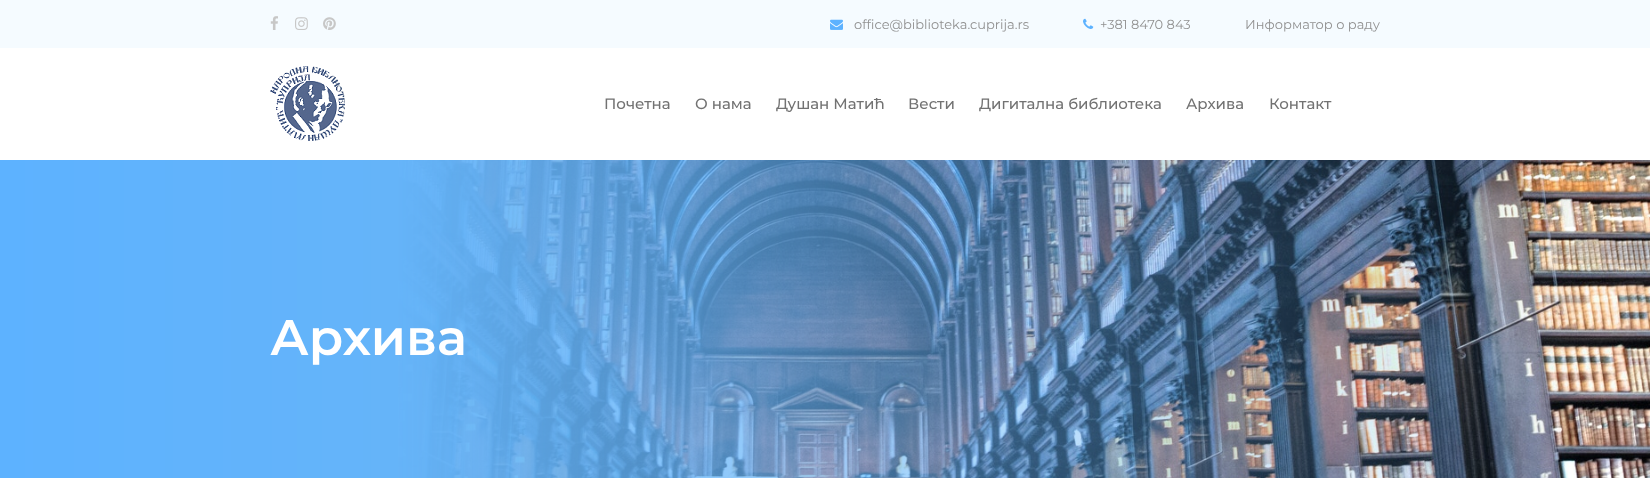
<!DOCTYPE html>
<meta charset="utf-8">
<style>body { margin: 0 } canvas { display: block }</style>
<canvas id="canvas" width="1650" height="478"></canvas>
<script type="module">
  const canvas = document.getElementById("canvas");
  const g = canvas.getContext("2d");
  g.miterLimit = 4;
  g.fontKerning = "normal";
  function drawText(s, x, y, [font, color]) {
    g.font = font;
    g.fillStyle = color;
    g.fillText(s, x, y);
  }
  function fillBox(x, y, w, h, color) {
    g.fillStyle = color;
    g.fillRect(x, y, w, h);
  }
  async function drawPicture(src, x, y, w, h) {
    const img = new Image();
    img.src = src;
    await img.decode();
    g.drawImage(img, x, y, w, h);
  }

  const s1 = ["13px Montserrat", "#919191"];
  const s2 = ["500 15px Montserrat", "#727272"];
  const s3 = ["600 50px Montserrat", "#FFFFFF"];

  fillBox(0, 0, 1650, 478, "#FFFFFF");
  fillBox(0, 0, 1650, 48, "#F5FBFF");
  await drawPicture("pic1.png", 270, 16, 8, 14);
  await drawPicture("pic2.png", 295, 17, 13, 13);
  await drawPicture("pic3.png", 323, 17, 13, 13);
  await drawPicture("pic4.png", 830, 19, 13, 11);
  drawText("office@biblioteka.cuprija.rs", 854, 29, s1);
  await drawPicture("pic5.png", 1083, 18, 11, 11);
  drawText("+381 8470 843", 1100, 29, s1);
  drawText("Информатор о раду", 1245, 29, s1);
  await drawPicture("pic6.png", 270, 66, 75, 75);
  drawText("Почетна", 604, 109, s2);
  drawText("О нама", 695, 109, s2);
  drawText("Душан Матић", 776, 109, s2);
  drawText("Вести", 908, 109, s2);
  drawText("Дигитална библиотека", 979, 109, s2);
  drawText("Архива", 1186, 109, s2);
  drawText("Контакт", 1269, 109, s2);
  await drawPicture("pic7.png", 0, 160, 1650, 318);
  drawText("Архива", 270, 355, s3);
</script>
